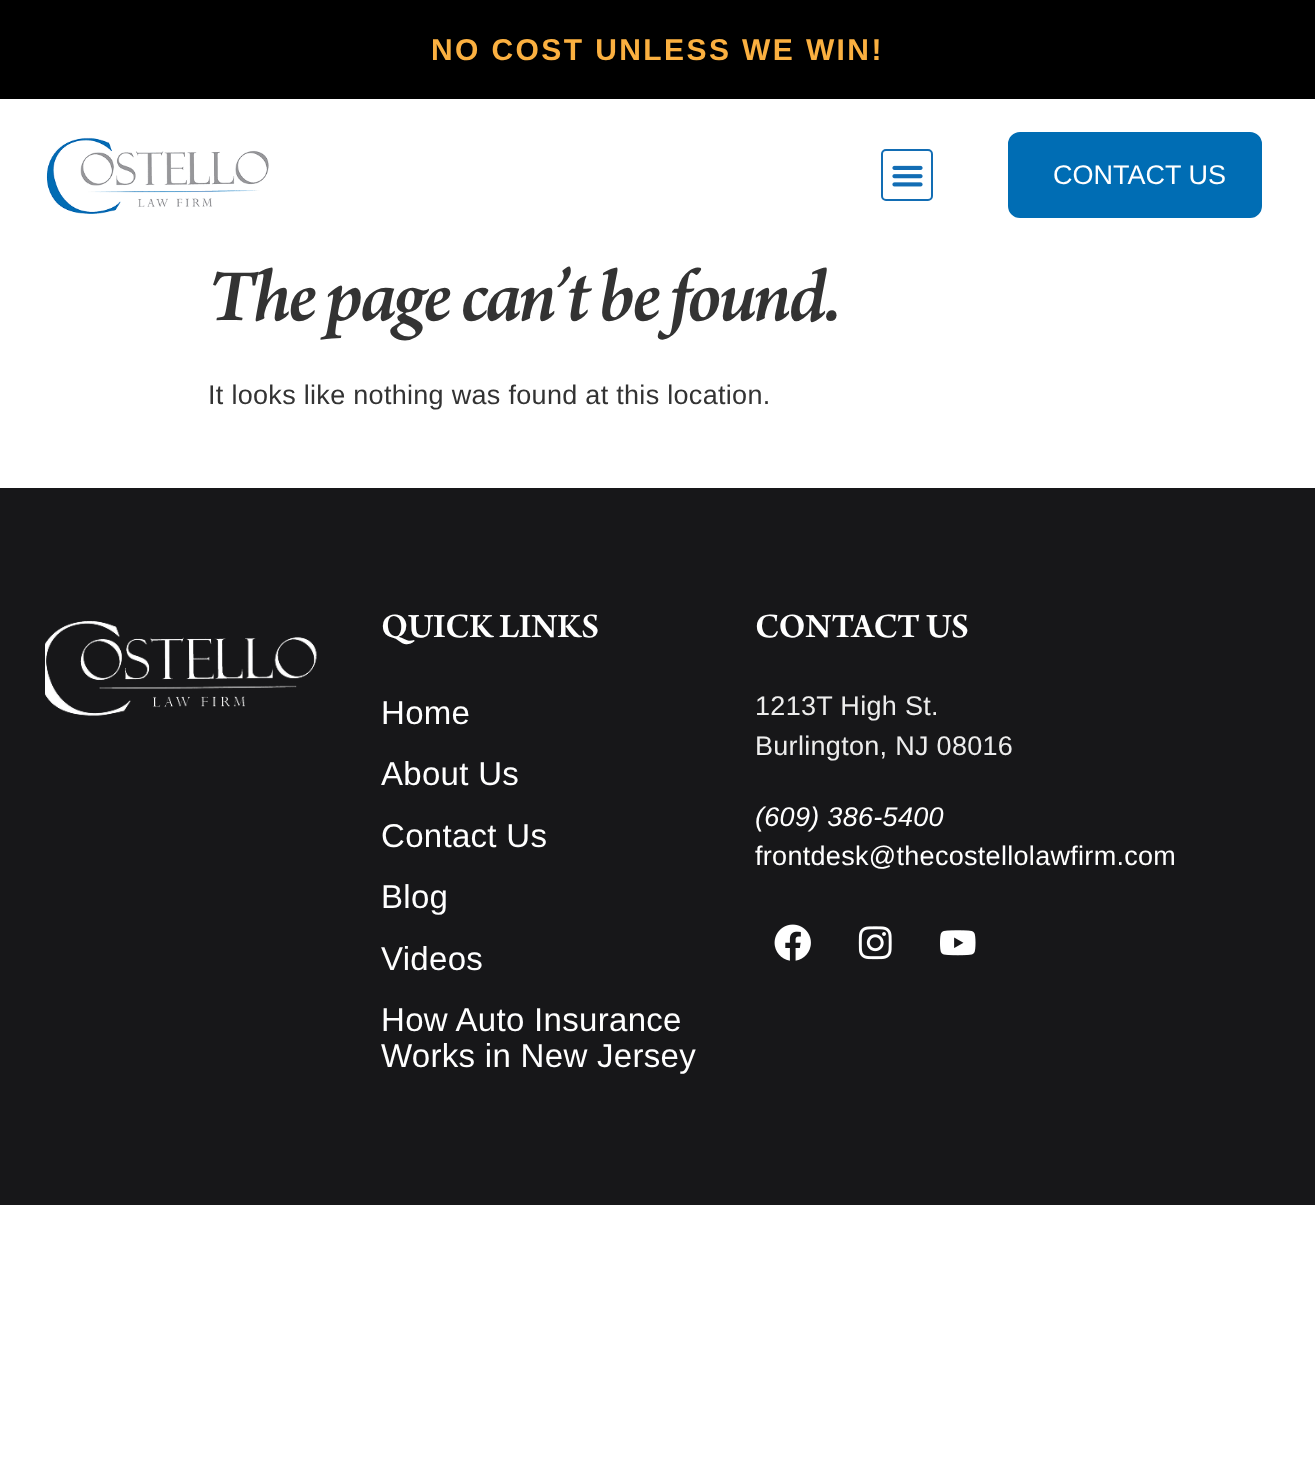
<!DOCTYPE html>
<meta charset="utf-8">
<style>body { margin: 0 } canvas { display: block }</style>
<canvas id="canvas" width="1315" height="1476"></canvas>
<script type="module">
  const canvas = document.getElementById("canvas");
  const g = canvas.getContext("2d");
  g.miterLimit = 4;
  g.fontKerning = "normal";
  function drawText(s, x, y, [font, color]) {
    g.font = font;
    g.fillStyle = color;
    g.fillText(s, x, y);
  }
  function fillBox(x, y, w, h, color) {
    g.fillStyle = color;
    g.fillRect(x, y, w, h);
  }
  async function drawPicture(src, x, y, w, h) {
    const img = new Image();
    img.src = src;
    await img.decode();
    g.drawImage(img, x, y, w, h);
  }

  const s1 = ["bold 30px Liberation Sans", "#FBB040"];
  const s2 = ["27px Liberation Sans", "#FFFFFF"];
  const s3 = ["italic 600 78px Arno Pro", "#333333"];
  const s4 = ["27px Liberation Sans", "#333333"];
  const s5 = ["600 36px Arno Pro", "#FFFFFF"];
  const s6 = ["33px Liberation Sans", "#FFFFFF"];
  const s7 = ["27px Liberation Sans", "#EDEDED"];
  const s8 = ["italic 27px Liberation Sans", "#FFFFFF"];

  fillBox(0, 0, 1315, 1476, "#FFFFFF");
  fillBox(0, 0, 1315, 99, "#000000");
  g.letterSpacing = "2.4px";
  drawText("NO COST UNLESS WE WIN!", 431, 60, s1);
  await drawPicture("pic1.png", 46, 137, 223, 77);
  g.beginPath();
  g.roundRect(882, 150, 50, 50, 4);
  g.strokeStyle = "#126DB4";
  g.lineWidth = 2;
  g.stroke();
  await drawPicture("pic2.png", 892, 165, 31, 22);
  g.fillStyle = "#006DB4";
  g.beginPath();
  g.roundRect(1009, 133, 252, 84, 11);
  g.fill();
  g.strokeStyle = "#006DB4";
  g.stroke();
  g.letterSpacing = "0px";
  drawText("CONTACT US", 1053, 184, s2);
  g.letterSpacing = "-3px";
  drawText("The page can’t be found.", 208, 320, s3);
  g.letterSpacing = "0.3px";
  drawText("It looks like nothing was found at this location.", 208, 404, s4);
  fillBox(0, 488, 1315, 717, "#171719");
  await drawPicture("pic3.png", 45, 621, 272, 95);
  g.letterSpacing = "-0.25px";
  drawText("QUICK LINKS", 381, 637, s5);
  g.letterSpacing = "0.3px";
  drawText("Home", 381, 724, s6);
  drawText("About Us", 381, 785, s6);
  drawText("Contact Us", 381, 847, s6);
  drawText("Blog", 381, 908, s6);
  drawText("Videos", 381, 970, s6);
  drawText("How Auto Insurance", 381, 1031, s6);
  drawText("Works in New Jersey", 381, 1067, s6);
  g.letterSpacing = "-0.25px";
  drawText("CONTACT US", 755, 637, s5);
  g.letterSpacing = "0.3px";
  drawText("1213T High St.", 755, 715, s7);
  drawText("Burlington, NJ 08016", 755, 755, s7);
  drawText("(609) 386-5400", 755, 826, s8);
  drawText("frontdesk@thecostellolawfirm.com", 755, 865, s2);
  await drawPicture("pic4.png", 774, 924, 37, 37);
  await drawPicture("pic5.png", 858, 926, 34, 34);
  await drawPicture("pic6.png", 940, 930, 36, 26);
</script>
